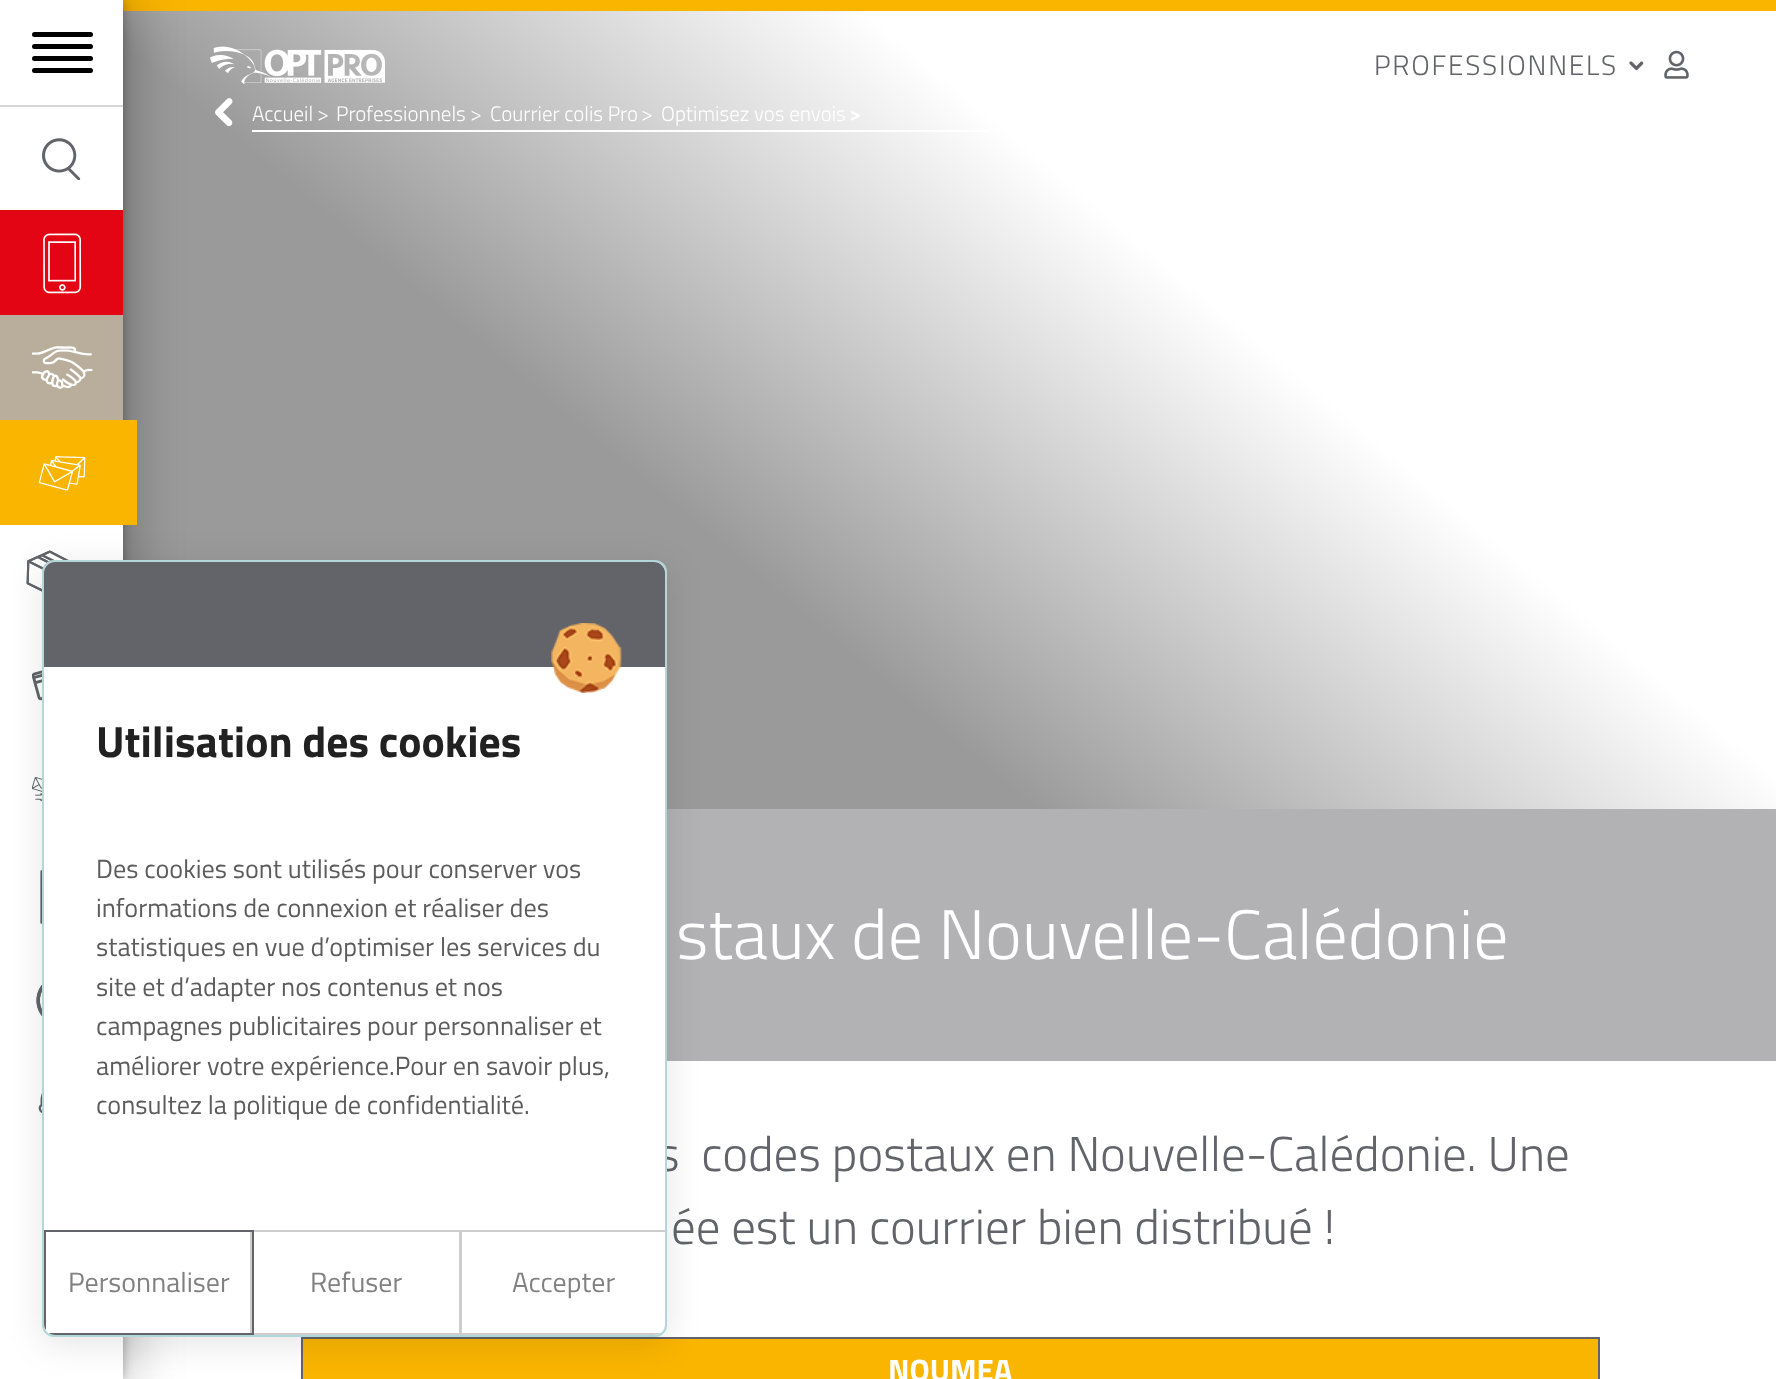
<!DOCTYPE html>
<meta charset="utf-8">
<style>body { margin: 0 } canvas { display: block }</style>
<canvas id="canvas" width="1776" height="1379"></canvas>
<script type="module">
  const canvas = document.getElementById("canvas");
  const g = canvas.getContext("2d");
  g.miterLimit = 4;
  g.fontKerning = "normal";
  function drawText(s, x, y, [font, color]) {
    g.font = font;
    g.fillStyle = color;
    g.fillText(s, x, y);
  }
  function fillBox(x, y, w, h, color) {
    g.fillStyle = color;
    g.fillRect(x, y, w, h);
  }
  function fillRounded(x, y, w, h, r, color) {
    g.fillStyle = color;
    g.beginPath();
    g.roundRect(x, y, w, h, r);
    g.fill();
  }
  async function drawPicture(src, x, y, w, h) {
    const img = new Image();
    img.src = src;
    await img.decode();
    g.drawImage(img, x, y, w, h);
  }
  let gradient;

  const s1 = ["300 28px Titillium Web", "#636469"];
  const s2 = ["300 21px Titillium Web", "#FFFFFF"];
  const s3 = ["600 21px Titillium Web", "#FFFFFF"];
  const s4 = ["300 70px Titillium Web", "#FFFFFF"];
  const s5 = ["300 49px Titillium Web", "#636469"];
  const s6 = ["bold 31px Titillium Web", "#FFFFFF"];
  const s7 = ["bold 43.75px Titillium Web", "#212121"];
  const s8 = ["26.25px Titillium Web", "#5C5C5C"];
  const s9 = ["28px Titillium Web", "#818181"];

  fillBox(0, 0, 1776, 1379, "#FFFFFF");
  fillBox(123, 0, 1653, 11, "#FAB500");
  gradient = g.createLinearGradient(411, 1051, 1487, -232);
  gradient.addColorStop(0, "#9A9A9A");
  gradient.addColorStop(0.35, "#9A9A9A");
  gradient.addColorStop(0.65, "#FFFFFF");
  gradient.addColorStop(1, "#FFFFFF");
  g.fillStyle = gradient;
  g.fillRect(123, 11, 1653, 798);
  g.fillStyle = "rgba(0, 0, 0, 0.22)";
  g.filter = "blur(4.5px)";
  g.beginPath();
  g.rect(2, 0, 122, 1379);
  g.fill();
  g.filter = "none";
  g.fillStyle = "rgba(0, 0, 0, 0.25)";
  g.filter = "blur(24.5px)";
  g.beginPath();
  g.rect(11, 0, 122, 1379);
  g.fill();
  g.filter = "none";
  fillBox(0, 0, 123, 1379, "#FFFFFF");
  fillRounded(32, 32, 61, 5, 2.5, "#000000");
  fillRounded(32, 44, 61, 5, 2.5, "#000000");
  fillRounded(32, 56, 61, 5, 2.5, "#000000");
  fillRounded(32, 68, 61, 5, 2.5, "#000000");
  fillBox(0, 105, 123, 2, "#D5D7D7");
  await drawPicture("pic1.png", 42, 138, 39, 42);
  fillBox(0, 210, 123, 105, "#E30513");
  await drawPicture("pic2.png", 43, 233, 39, 61);
  fillBox(0, 315, 123, 105, "#B9AD9B");
  await drawPicture("pic3.png", 32, 346, 61, 43);
  fillBox(0, 420, 137, 105, "#FAB500");
  await drawPicture("pic4.png", 38, 456, 48, 35);
  await drawPicture("pic5.png", 26, 550, 43, 42);
  await drawPicture("pic6.png", 32, 670, 10, 31);
  await drawPicture("pic7.png", 32, 776, 10, 26);
  await drawPicture("pic8.png", 40, 870, 2, 54);
  await drawPicture("pic9.png", 36, 984, 6, 32);
  await drawPicture("pic10.png", 38, 1093, 4, 21);
  g.letterSpacing = "1.75px";
  drawText("PROFESSIONNELS", 1374, 75, s1);
  await drawPicture("pic11.png", 1629, 61, 15, 10);
  await drawPicture("pic12.png", 1664, 50, 25, 29);
  await drawPicture("pic13.png", 210, 46, 175, 38);
  await drawPicture("pic14.png", 215, 98, 18, 28);
  fillBox(252, 130, 737, 2, "#FFFFFF");
  g.letterSpacing = "0px";
  drawText("Accueil", 252, 121, s2);
  drawText(">", 317, 121, s2);
  drawText("Professionnels", 336, 121, s2);
  drawText(">", 470, 121, s2);
  drawText("Courrier colis Pro", 490, 121, s2);
  drawText(">", 641, 121, s2);
  drawText("Optimisez vos envois", 661, 121, s2);
  drawText(">", 849, 121, s3);
  fillBox(667, 809, 1109, 252, "#B2B2B5");
  drawText("staux de Nouvelle-Calédonie", 676, 959, s4);
  drawText("s  codes postaux en Nouvelle-Calédonie. Une", 657, 1171, s5);
  drawText("ée est un courrier bien distribué !", 671, 1244, s5);
  fillBox(303, 1339, 1295, 40, "#FAB500");
  fillBox(301, 1337, 1299, 2, "#636469");
  fillBox(1598, 1337, 2, 42, "#636469");
  fillBox(301, 1337, 2, 42, "#636469");
  drawText("NOUMEA", 888, 1381, s6);
  g.fillStyle = "rgba(0, 0, 0, 0.1)";
  g.filter = "blur(17.5px)";
  g.beginPath();
  g.roundRect(42, 567, 625, 777, 12);
  g.fill();
  g.filter = "none";
  g.fillStyle = "#FFFFFF";
  g.beginPath();
  g.roundRect(43, 561, 623, 775, 11);
  g.fill();
  g.strokeStyle = "#B1D7D8";
  g.lineWidth = 2;
  g.stroke();
  g.fillStyle = "#636469";
  g.beginPath();
  g.roundRect(44, 562, 621, 105, [11, 11, 0, 0]);
  g.fill();
  drawText("Utilisation des cookies", 96, 757, s7);
  await drawPicture("pic15.png", 551, 623, 71, 70);
  drawText("Des cookies sont utilisés pour conserver vos", 96, 878, s8);
  drawText("informations de connexion et réaliser des", 96, 917, s8);
  drawText("statistiques en vue d’optimiser les services du", 96, 956, s8);
  drawText("site et d’adapter nos contenus et nos", 96, 996, s8);
  drawText("campagnes publicitaires pour personnaliser et", 96, 1035, s8);
  drawText("améliorer votre expérience.Pour en savoir plus,", 96, 1075, s8);
  drawText("consultez la politique de confidentialité.", 96, 1114, s8);
  g.fillStyle = "#CDCDCD";
  g.beginPath();
  g.moveTo(459, 1230);
  g.lineTo(459, 1335);
  g.lineTo(654, 1335);
  g.bezierCurveTo(656, 1335, 659, 1334, 660, 1333);
  g.lineTo(461, 1333);
  g.lineTo(461, 1232);
  g.lineTo(665, 1232);
  g.lineTo(665, 1230);
  g.closePath();
  g.fill();
  g.strokeStyle = "#CDCDCD";
  g.strokeRect(251, 1231, 210, 103);
  g.fillStyle = "#636469";
  g.beginPath();
  g.moveTo(46, 1232);
  g.lineTo(252, 1232);
  g.lineTo(252, 1333);
  g.lineTo(49, 1333);
  g.bezierCurveTo(50, 1334, 53, 1335, 55, 1335);
  g.lineTo(254, 1335);
  g.lineTo(254, 1230);
  g.lineTo(44, 1230);
  g.lineTo(44, 1324);
  g.bezierCurveTo(44, 1326, 45, 1329, 46, 1330);
  g.closePath();
  g.fill();
  drawText("Personnaliser", 68, 1292, s9);
  drawText("Refuser", 310, 1292, s9);
  drawText("Accepter", 512, 1292, s9);
</script>
